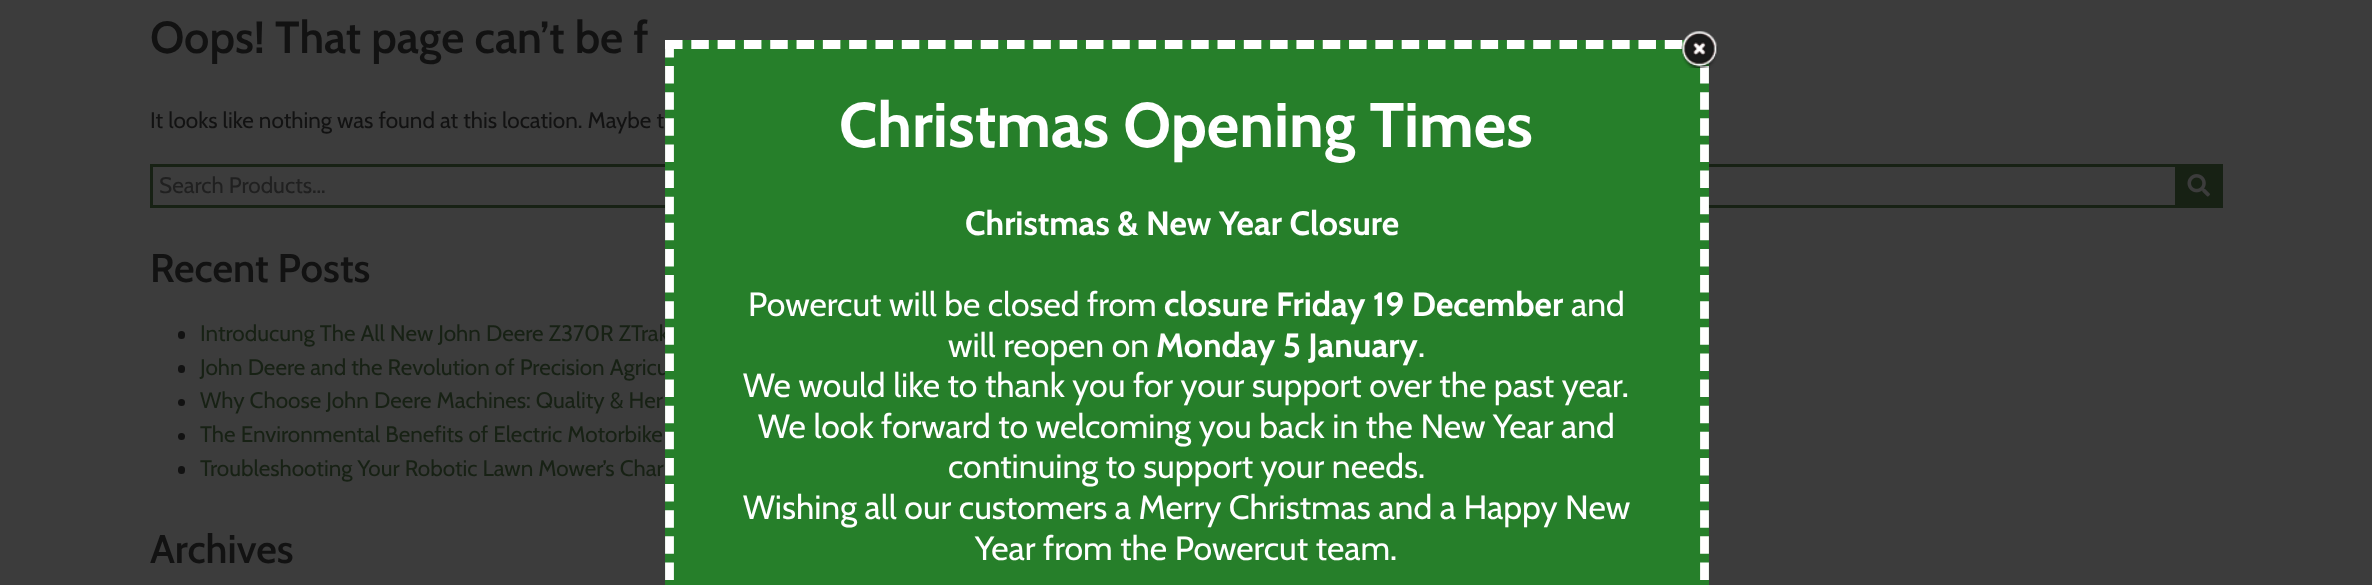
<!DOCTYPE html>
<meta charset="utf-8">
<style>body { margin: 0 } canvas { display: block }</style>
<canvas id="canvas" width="2372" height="585"></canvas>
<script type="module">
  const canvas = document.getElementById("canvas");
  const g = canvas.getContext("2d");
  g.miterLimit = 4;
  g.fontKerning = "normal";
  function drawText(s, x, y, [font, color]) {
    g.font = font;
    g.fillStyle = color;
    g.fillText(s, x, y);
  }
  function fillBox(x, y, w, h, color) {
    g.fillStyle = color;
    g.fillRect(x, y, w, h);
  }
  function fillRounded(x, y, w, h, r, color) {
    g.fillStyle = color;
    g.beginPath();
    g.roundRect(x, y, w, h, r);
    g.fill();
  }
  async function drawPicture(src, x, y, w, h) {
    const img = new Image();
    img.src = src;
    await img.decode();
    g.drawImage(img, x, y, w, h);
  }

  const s1 = ["600 45px Cabin", "#121212"];
  const s2 = ["22.5px Cabin", "#121212"];
  const s3 = ["22.5px Cabin", "#202020"];
  const s4 = ["600 40px Cabin", "#121212"];
  const s5 = ["22.5px Cabin", "#172114"];
  const s6 = ["bold 63px Cabin", "#FFFFFF"];
  const s7 = ["bold 33.75px Cabin", "#FFFFFF"];
  const s8 = ["33.75px Cabin", "#FFFFFF"];

  fillBox(0, 0, 2372, 585, "#3C3C3C");
  drawText("Oops! That page can’t be f", 150, 53, s1);
  drawText("It looks like nothing was found at this location. Maybe t", 150, 128, s2);
  fillBox(150, 164, 2026, 3, "#172114");
  fillBox(150, 205, 2026, 3, "#172114");
  fillBox(150, 164, 3, 44, "#172114");
  drawText("Search Products…", 159, 193, s3);
  fillBox(2175, 164, 48, 44, "#172114");
  await drawPicture("pic1.png", 2187, 174, 23, 23);
  drawText("Recent Posts", 150, 282, s4);
  fillRounded(178, 331, 7, 8, 3.5, "#121212");
  drawText("Introducung The All New John Deere Z370R ZTrak", 200, 341, s5);
  fillRounded(178, 365, 7, 8, 3.5, "#121212");
  drawText("John Deere and the Revolution of Precision Agricu", 200, 375, s5);
  g.fillStyle = "#121212";
  g.beginPath();
  g.arc(181.5, 402.5, 3.5, 0, Math.PI * 2);
  g.fill();
  drawText("Why Choose John Deere Machines: Quality & Her", 200, 408, s5);
  g.fillStyle = "#121212";
  g.beginPath();
  g.arc(181.5, 436.5, 3.5, 0, Math.PI * 2);
  g.fill();
  drawText("The Environmental Benefits of Electric Motorbike", 200, 442, s5);
  fillRounded(178, 466, 7, 8, 3.5, "#121212");
  drawText("Troubleshooting Your Robotic Lawn Mower’s Char", 200, 476, s5);
  drawText("Archives", 150, 563, s4);
  fillBox(665, 40, 1044, 545, "#267F2A");
  g.beginPath();
  g.moveTo(665, 44.5);
  g.lineTo(1709, 44.5);
  g.strokeStyle = "#FFFFFF";
  g.lineWidth = 8.8;
  g.setLineDash([17.5, 8.81]);
  g.stroke();
  g.beginPath();
  g.moveTo(1704.5, 40);
  g.lineTo(1704.5, 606);
  g.setLineDash([17.5, 8.62]);
  g.stroke();
  g.beginPath();
  g.moveTo(669.5, 40);
  g.lineTo(669.5, 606);
  g.stroke();
  await drawPicture("pic2.png", 1681, 31, 37, 37);
  drawText("Christmas Opening Times", 839, 147, s6);
  drawText("Christmas & New Year Closure", 965, 235, s7);
  drawText("Powercut will be closed from", 748, 316, s8);
  drawText("closure Friday 19 December", 1164, 316, s7);
  drawText("and", 1571, 316, s8);
  drawText("will reopen on", 948, 357, s8);
  drawText("Monday 5 January", 1156, 357, s7);
  drawText(".", 1418, 357, s8);
  drawText("We would like to thank you for your support over the past year.", 743, 397, s8);
  drawText("We look forward to welcoming you back in the New Year and", 758, 438, s8);
  drawText("continuing to support your needs.", 948, 478, s8);
  drawText("Wishing all our customers a Merry Christmas and a Happy New", 743, 519, s8);
  drawText("Year from the Powercut team.", 975, 560, s8);
</script>
